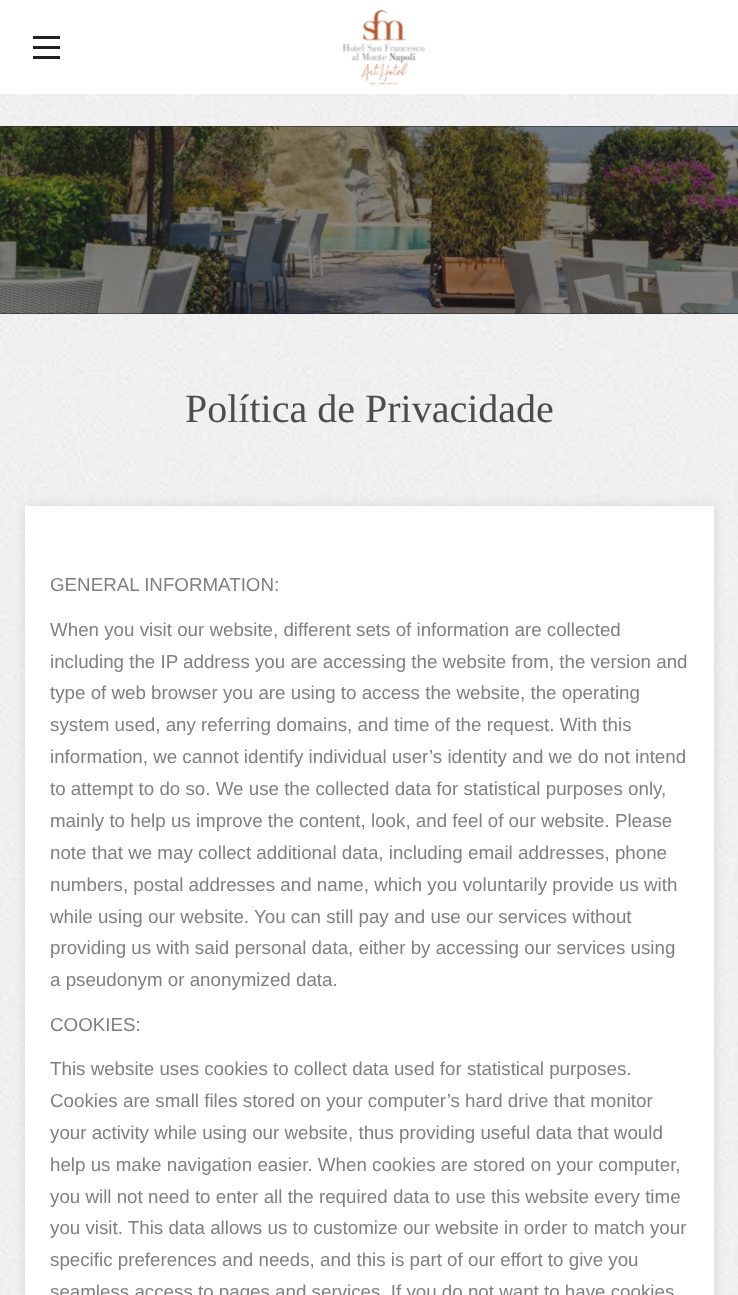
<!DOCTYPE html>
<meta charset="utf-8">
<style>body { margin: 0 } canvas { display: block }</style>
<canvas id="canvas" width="738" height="1295"></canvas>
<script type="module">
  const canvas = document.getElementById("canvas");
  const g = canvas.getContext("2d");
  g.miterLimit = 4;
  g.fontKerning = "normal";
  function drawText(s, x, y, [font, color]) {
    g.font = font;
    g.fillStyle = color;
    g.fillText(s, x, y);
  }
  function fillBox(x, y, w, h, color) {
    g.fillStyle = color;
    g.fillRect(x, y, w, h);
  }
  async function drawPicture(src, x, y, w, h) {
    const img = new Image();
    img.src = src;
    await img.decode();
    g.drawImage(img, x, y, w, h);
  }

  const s1 = ["40px Liberation Serif", "#4C4C4C"];
  const s2 = ["18.75px Liberation Sans", "#808080"];

  fillBox(0, 0, 738, 1295, "#FFFFFF");
  await drawPicture("pic1.png", 0, 94, 738, 1201);
  fillBox(33, 36, 27, 3, "#212121");
  fillBox(33, 56, 27, 3, "#212121");
  fillBox(33, 46, 27, 3, "#212121");
  await drawPicture("pic2.png", 343, 10, 83, 76);
  fillBox(0, 126, 738, 188, "#282828");
  await drawPicture("pic3.png", 0, 126, 738, 188);
  drawText("Política de Privacidade", 185, 422, s1);
  g.fillStyle = "rgba(0, 0, 0, 0.1)";
  g.filter = "blur(6px)";
  g.beginPath();
  g.rect(25, 506, 689, 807);
  g.fill();
  g.filter = "none";
  fillBox(25, 506, 689, 789, "#FFFFFF");
  drawText("GENERAL INFORMATION:", 50, 591, s2);
  drawText("When you visit our website, different sets of information are collected", 50, 636, s2);
  drawText("including the IP address you are accessing the website from, the version and", 50, 668, s2);
  drawText("type of web browser you are using to access the website, the operating", 50, 699, s2);
  drawText("system used, any referring domains, and time of the request. With this", 50, 731, s2);
  drawText("information, we cannot identify individual user’s identity and we do not intend", 50, 763, s2);
  drawText("to attempt to do so. We use the collected data for statistical purposes only,", 50, 795, s2);
  drawText("mainly to help us improve the content, look, and feel of our website. Please", 50, 827, s2);
  drawText("note that we may collect additional data, including email addresses, phone", 50, 859, s2);
  drawText("numbers, postal addresses and name, which you voluntarily provide us with", 50, 891, s2);
  drawText("while using our website. You can still pay and use our services without", 50, 923, s2);
  drawText("providing us with said personal data, either by accessing our services using", 50, 954, s2);
  drawText("a pseudonym or anonymized data.", 50, 986, s2);
  drawText("COOKIES:", 50, 1031, s2);
  drawText("This website uses cookies to collect data used for statistical purposes.", 50, 1075, s2);
  drawText("Cookies are small files stored on your computer’s hard drive that monitor", 50, 1107, s2);
  drawText("your activity while using our website, thus providing useful data that would", 50, 1139, s2);
  drawText("help us make navigation easier. When cookies are stored on your computer,", 50, 1171, s2);
  drawText("you will not need to enter all the required data to use this website every time", 50, 1203, s2);
  drawText("you visit. This data allows us to customize our website in order to match your", 50, 1234, s2);
  drawText("specific preferences and needs, and this is part of our effort to give you", 50, 1266, s2);
  drawText("seamless access to pages and services. If you do not want to have cookies", 50, 1298, s2);
</script>
